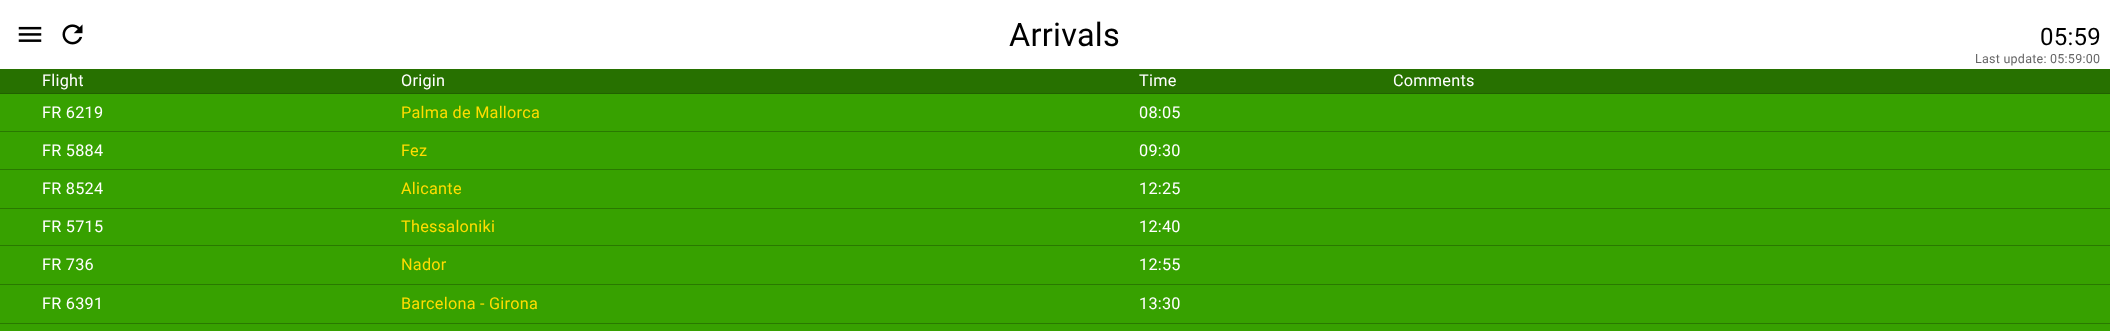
<!DOCTYPE html>
<meta charset="utf-8">
<style>body { margin: 0 } canvas { display: block }</style>
<canvas id="canvas" width="2110" height="331"></canvas>
<script type="module">
  const canvas = document.getElementById("canvas");
  const g = canvas.getContext("2d");
  g.miterLimit = 4;
  g.fontKerning = "normal";
  function drawText(s, x, y, [font, color]) {
    g.font = font;
    g.fillStyle = color;
    g.fillText(s, x, y);
  }
  function fillBox(x, y, w, h, color) {
    g.fillStyle = color;
    g.fillRect(x, y, w, h);
  }
  async function drawPicture(src, x, y, w, h) {
    const img = new Image();
    img.src = src;
    await img.decode();
    g.drawImage(img, x, y, w, h);
  }

  const s1 = ["32.5px Roboto", "#000000"];
  const s2 = ["24px Roboto", "#000000"];
  const s3 = ["12.5px Roboto", "#666666"];
  const s4 = ["16.25px Roboto", "#FFFFFF"];
  const s5 = ["16.25px Roboto", "#FFDD00"];

  fillBox(0, 0, 2110, 331, "#37A100");
  fillBox(0, 0, 2110, 69, "#FFFFFF");
  await drawPicture("pic1.png", 18, 26, 24, 16);
  await drawPicture("pic2.png", 62, 24, 21, 21);
  g.letterSpacing = "0.25px";
  drawText("Arrivals", 1009, 46, s1);
  drawText("05:59", 2040, 45, s2);
  drawText("Last update: 05:59:00", 1975, 63, s3);
  fillBox(0, 69, 2110, 24, "#277100");
  fillBox(0, 93, 2110, 1, "#216000");
  drawText("Flight", 42, 86, s4);
  drawText("Origin", 401, 86, s4);
  drawText("Time", 1139, 86, s4);
  drawText("Comments", 1393, 86, s4);
  fillBox(0, 131, 2110, 1, "#297900");
  drawText("FR 6219", 42, 118, s4);
  drawText("Palma de Mallorca", 401, 118, s5);
  drawText("08:05", 1139, 118, s4);
  fillBox(0, 169, 2110, 1, "#297900");
  drawText("FR 5884", 42, 156, s4);
  drawText("Fez", 401, 156, s5);
  drawText("09:30", 1139, 156, s4);
  fillBox(0, 208, 2110, 1, "#297900");
  drawText("FR 8524", 42, 194, s4);
  drawText("Alicante", 401, 194, s5);
  drawText("12:25", 1139, 194, s4);
  fillBox(0, 245, 2110, 1, "#297900");
  drawText("FR 5715", 42, 232, s4);
  drawText("Thessaloniki", 401, 232, s5);
  drawText("12:40", 1139, 232, s4);
  fillBox(0, 284, 2110, 1, "#297900");
  drawText("FR 736", 42, 270, s4);
  drawText("Nador", 401, 270, s5);
  drawText("12:55", 1139, 270, s4);
  fillBox(0, 323, 2110, 1, "#297900");
  drawText("FR 6391", 42, 309, s4);
  drawText("Barcelona - Girona", 401, 309, s5);
  drawText("13:30", 1139, 309, s4);
</script>
